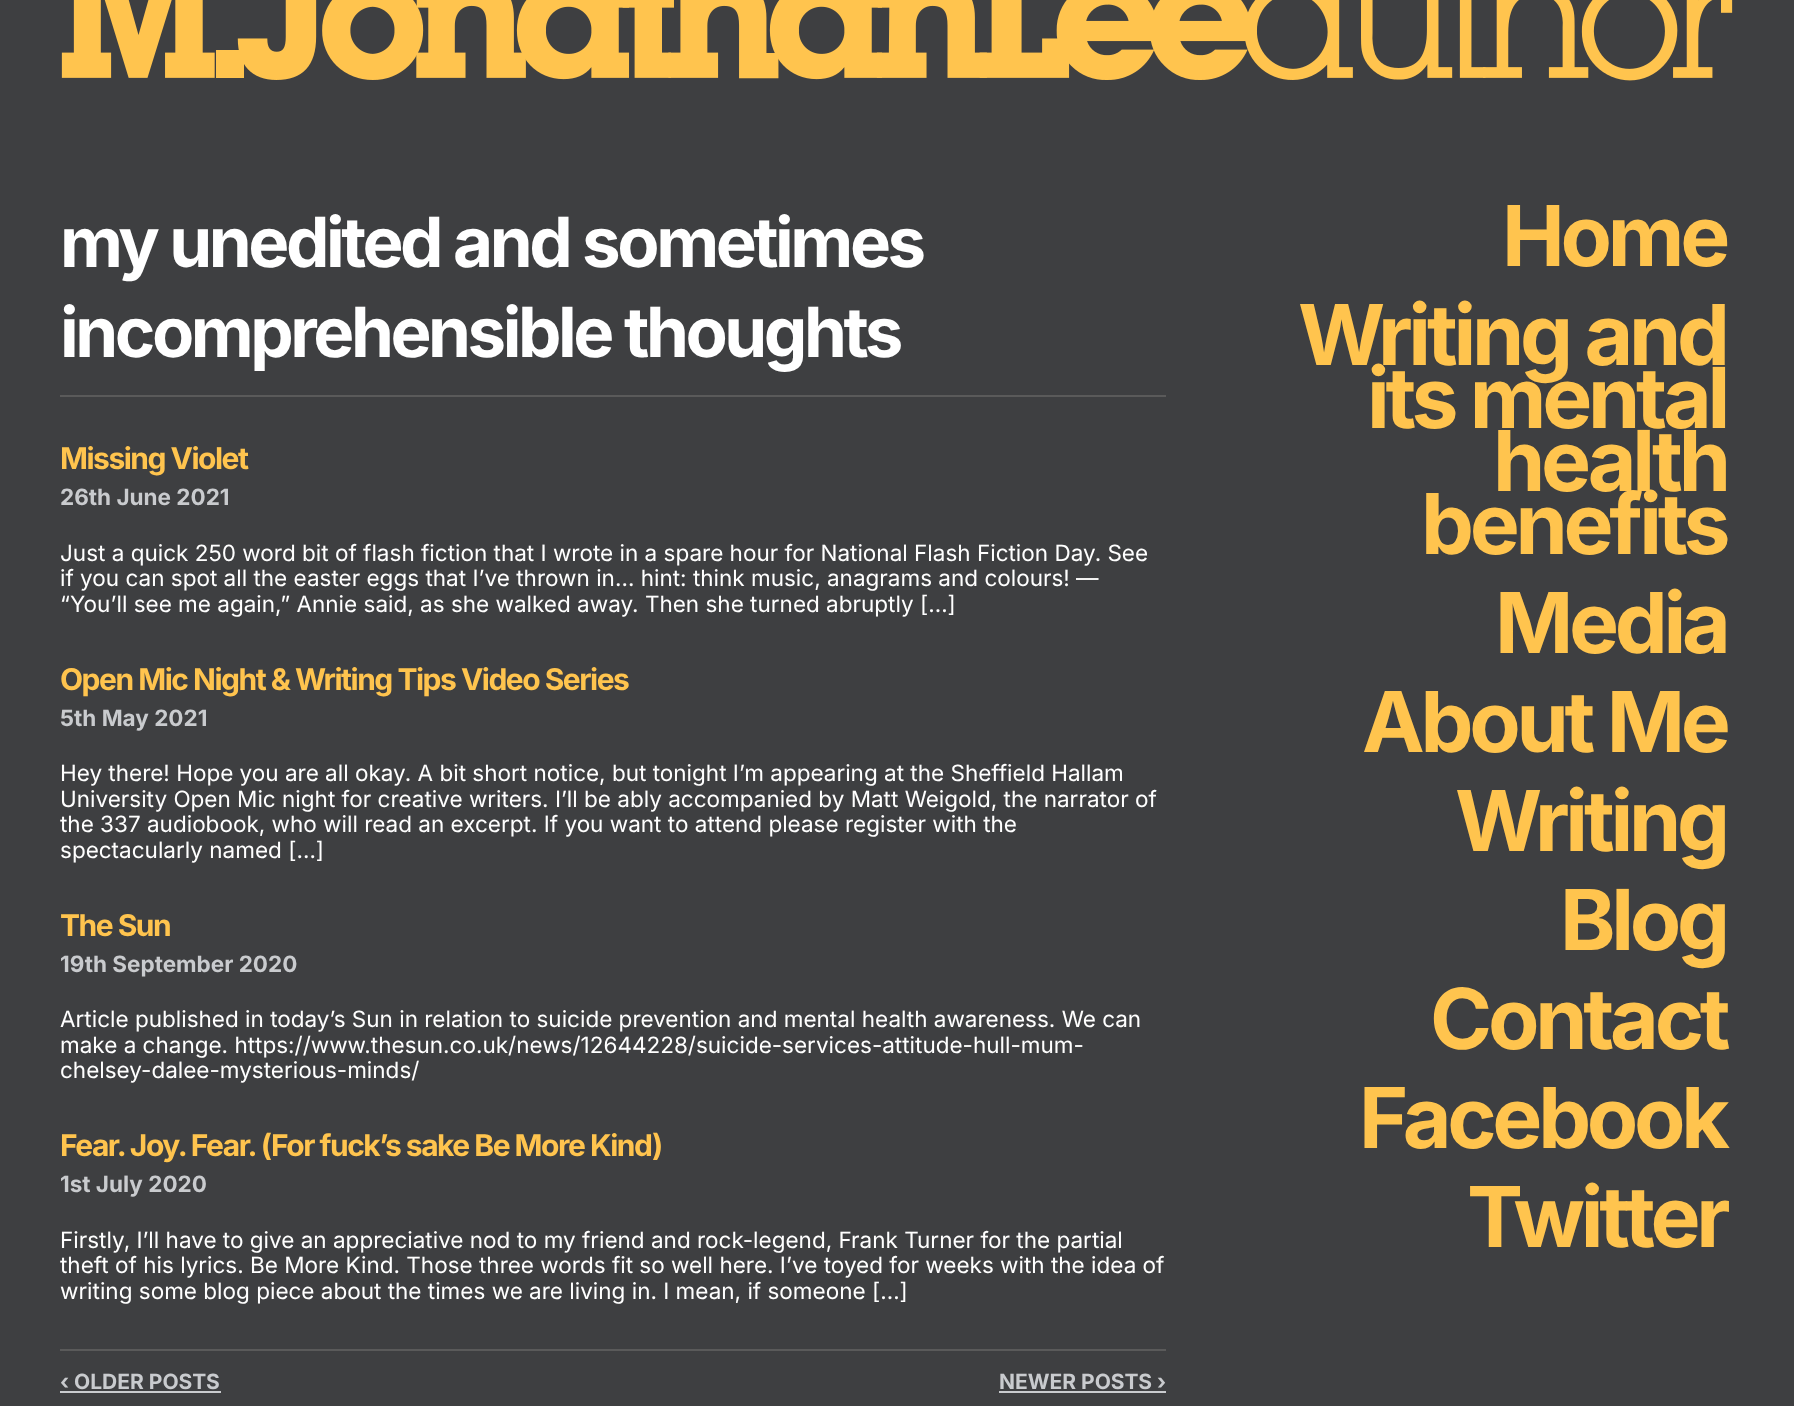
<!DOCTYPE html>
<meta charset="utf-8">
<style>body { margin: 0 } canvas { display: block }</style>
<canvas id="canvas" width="1794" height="1406"></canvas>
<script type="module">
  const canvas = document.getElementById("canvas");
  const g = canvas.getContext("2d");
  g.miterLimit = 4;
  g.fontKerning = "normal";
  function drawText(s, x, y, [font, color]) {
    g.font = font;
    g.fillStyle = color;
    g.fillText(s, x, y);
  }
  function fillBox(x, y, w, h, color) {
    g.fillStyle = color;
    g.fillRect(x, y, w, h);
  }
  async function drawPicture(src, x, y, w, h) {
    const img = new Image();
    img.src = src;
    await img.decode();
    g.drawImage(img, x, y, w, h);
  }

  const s1 = ["bold 69px Inter", "#FFFFFF"];
  const s2 = ["bold 30px Inter", "#FFC44E"];
  const s3 = ["bold 22.5px Inter", "#C9CBCE"];
  const s4 = ["22.5px Inter", "#FFFFFF"];
  const s5 = ["bold 21px Inter", "#C9CBCE"];
  const s6 = ["bold 84px Inter", "#FFC44E"];

  fillBox(0, 0, 1794, 1406, "#3E3F41");
  await drawPicture("pic1.png", 61, 0, 1672, 81);
  g.letterSpacing = "-3.45px";
  drawText("my unedited and sometimes", 60, 267, s1);
  drawText("incomprehensible thoughts", 60, 357, s1);
  fillBox(60, 395, 1106, 2, "#5A5A5A");
  g.letterSpacing = "-1.5px";
  drawText("Missing Violet", 60, 469, s2);
  g.letterSpacing = "0px";
  drawText("26th June 2021", 60, 505, s3);
  drawText("Just a quick 250 word bit of flash fiction that I wrote in a spare hour for National Flash Fiction Day. See", 60, 561, s4);
  drawText("if you can spot all the easter eggs that I’ve thrown in… hint: think music, anagrams and colours! —", 60, 586, s4);
  drawText("“You’ll see me again,” Annie said, as she walked away. Then she turned abruptly […]", 60, 612, s4);
  g.letterSpacing = "-1.5px";
  drawText("Open Mic Night & Writing Tips Video Series", 60, 690, s2);
  g.letterSpacing = "0px";
  drawText("5th May 2021", 60, 726, s3);
  drawText("Hey there! Hope you are all okay. A bit short notice, but tonight I’m appearing at the Sheffield Hallam", 60, 781, s4);
  drawText("University Open Mic night for creative writers. I’ll be ably accompanied by Matt Weigold, the narrator of", 60, 807, s4);
  drawText("the 337 audiobook, who will read an excerpt. If you want to attend please register with the", 60, 832, s4);
  drawText("spectacularly named […]", 60, 858, s4);
  g.letterSpacing = "-1.5px";
  drawText("The Sun", 60, 936, s2);
  g.letterSpacing = "0px";
  drawText("19th September 2020", 60, 972, s3);
  drawText("Article published in today’s Sun in relation to suicide prevention and mental health awareness. We can", 60, 1027, s4);
  drawText("make a change. https://www.thesun.co.uk/news/12644228/suicide-services-attitude-hull-mum-", 60, 1053, s4);
  drawText("chelsey-dalee-mysterious-minds/", 60, 1078, s4);
  g.letterSpacing = "-1.5px";
  drawText("Fear. Joy. Fear. (For fuck’s sake Be More Kind)", 60, 1156, s2);
  g.letterSpacing = "0px";
  drawText("1st July 2020", 60, 1192, s3);
  drawText("Firstly, I’ll have to give an appreciative nod to my friend and rock-legend, Frank Turner for the partial", 60, 1248, s4);
  drawText("theft of his lyrics. Be More Kind. Those three words fit so well here. I’ve toyed for weeks with the idea of", 60, 1273, s4);
  drawText("writing some blog piece about the times we are living in. I mean, if someone […]", 60, 1299, s4);
  fillBox(60, 1349, 1106, 2, "#5A5A5A");
  drawText("‹ OLDER POSTS", 60, 1389, s5);
  fillBox(60, 1391, 161, 2, "#C9CBCE");
  drawText("NEWER POSTS ›", 999, 1389, s5);
  fillBox(999, 1391, 167, 2, "#C9CBCE");
  g.letterSpacing = "-4.25px";
  drawText("Home", 1502, 266, s6);
  drawText("Writing and", 1298, 365, s6);
  drawText("its mental", 1367, 428, s6);
  drawText("health", 1493, 491, s6);
  drawText("benefits", 1421, 554, s6);
  drawText("Media", 1495, 653, s6);
  drawText("About Me", 1362, 752, s6);
  drawText("Writing", 1455, 851, s6);
  drawText("Blog", 1560, 950, s6);
  drawText("Contact", 1430, 1049, s6);
  drawText("Facebook", 1359, 1148, s6);
  drawText("Twitter", 1467, 1247, s6);
</script>
